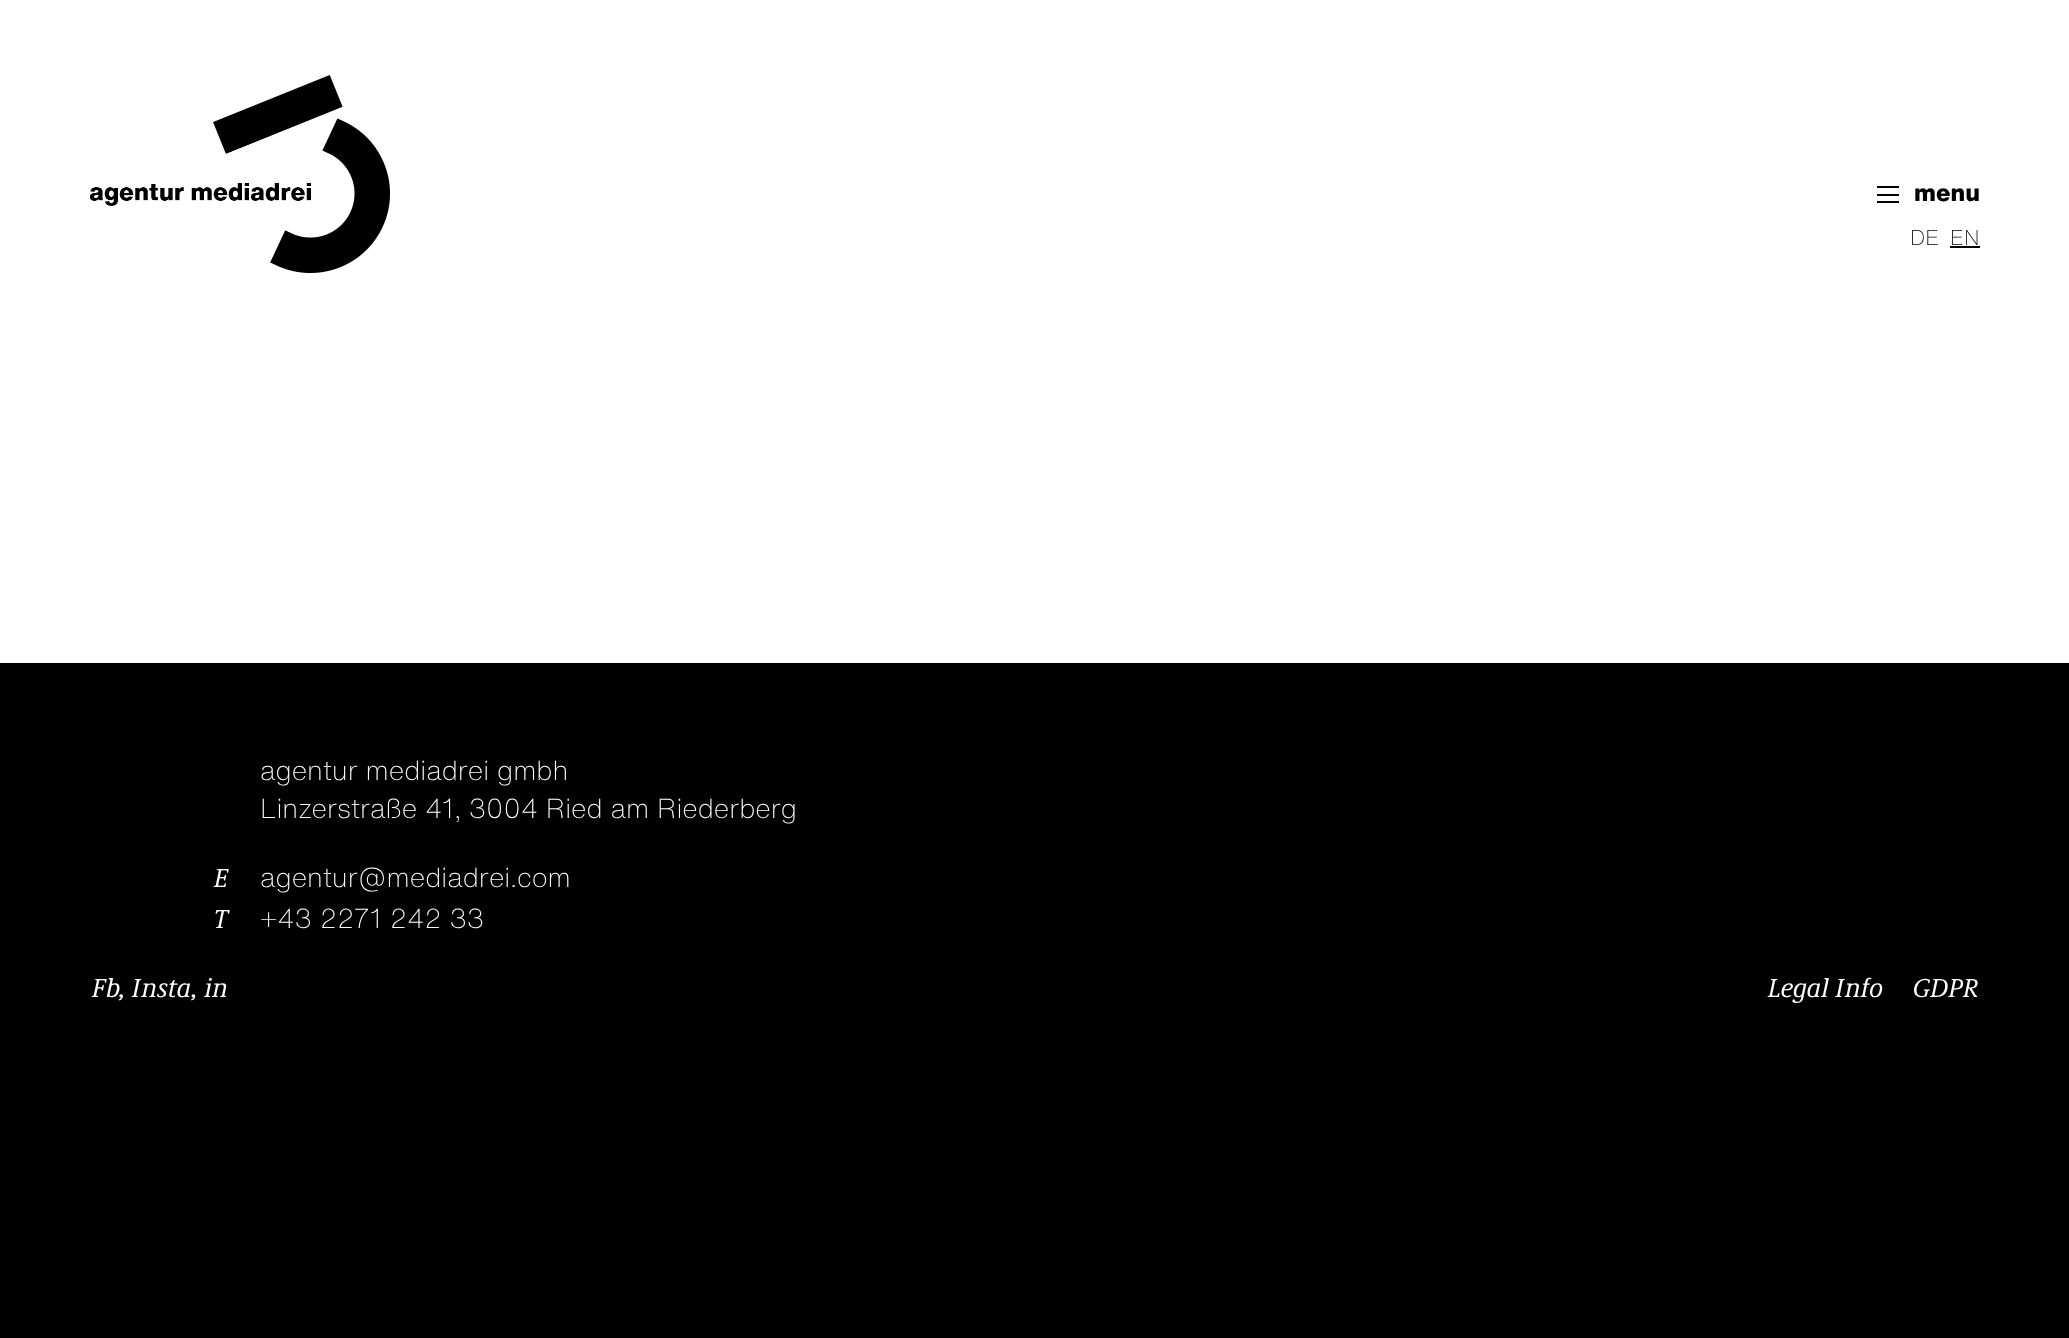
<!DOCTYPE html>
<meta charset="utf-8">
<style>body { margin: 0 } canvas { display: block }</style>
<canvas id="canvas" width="2069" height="1338"></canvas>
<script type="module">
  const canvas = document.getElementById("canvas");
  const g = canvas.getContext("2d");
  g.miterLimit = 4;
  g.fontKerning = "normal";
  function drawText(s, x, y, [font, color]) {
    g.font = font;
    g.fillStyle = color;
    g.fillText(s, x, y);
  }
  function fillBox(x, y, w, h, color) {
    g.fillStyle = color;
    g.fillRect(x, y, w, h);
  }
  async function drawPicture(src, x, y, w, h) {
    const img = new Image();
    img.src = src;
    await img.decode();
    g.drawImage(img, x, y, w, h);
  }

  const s1 = ["24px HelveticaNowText", "#000000"];
  const s2 = ["21px 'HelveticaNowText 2'", "#000000"];
  const s3 = ["27px 'HelveticaNowText 2'", "#FFFFFF"];
  const s4 = ["italic 27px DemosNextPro", "#FFFFFF"];

  fillBox(0, 0, 2069, 1338, "#000000");
  fillBox(0, 0, 2069, 663, "#FFFFFF");
  await drawPicture("pic1.png", 90, 75, 300, 198);
  fillBox(1877, 186, 22, 2, "#000000");
  fillBox(1877, 194, 22, 2, "#000000");
  fillBox(1877, 201, 22, 2, "#000000");
  drawText("menu", 1914, 201, s1);
  drawText("DE", 1910, 245, s2);
  drawText("EN", 1950, 245, s2);
  fillBox(1950, 246, 30, 2, "#000000");
  drawText("agentur mediadrei gmbh", 260, 780, s3);
  drawText("Linzerstraße 41, 3004 Ried am Riederberg", 260, 818, s3);
  drawText("E", 214, 887, s4);
  drawText("agentur@mediadrei.com", 260, 887, s3);
  drawText("T", 214, 928, s4);
  drawText("+43 2271 242 33", 260, 928, s3);
  drawText("Fb", 92, 997, s4);
  drawText(", Insta, in", 119, 997, s4);
  drawText("Legal Info", 1768, 997, s4);
  drawText("GDPR", 1913, 997, s4);
</script>
